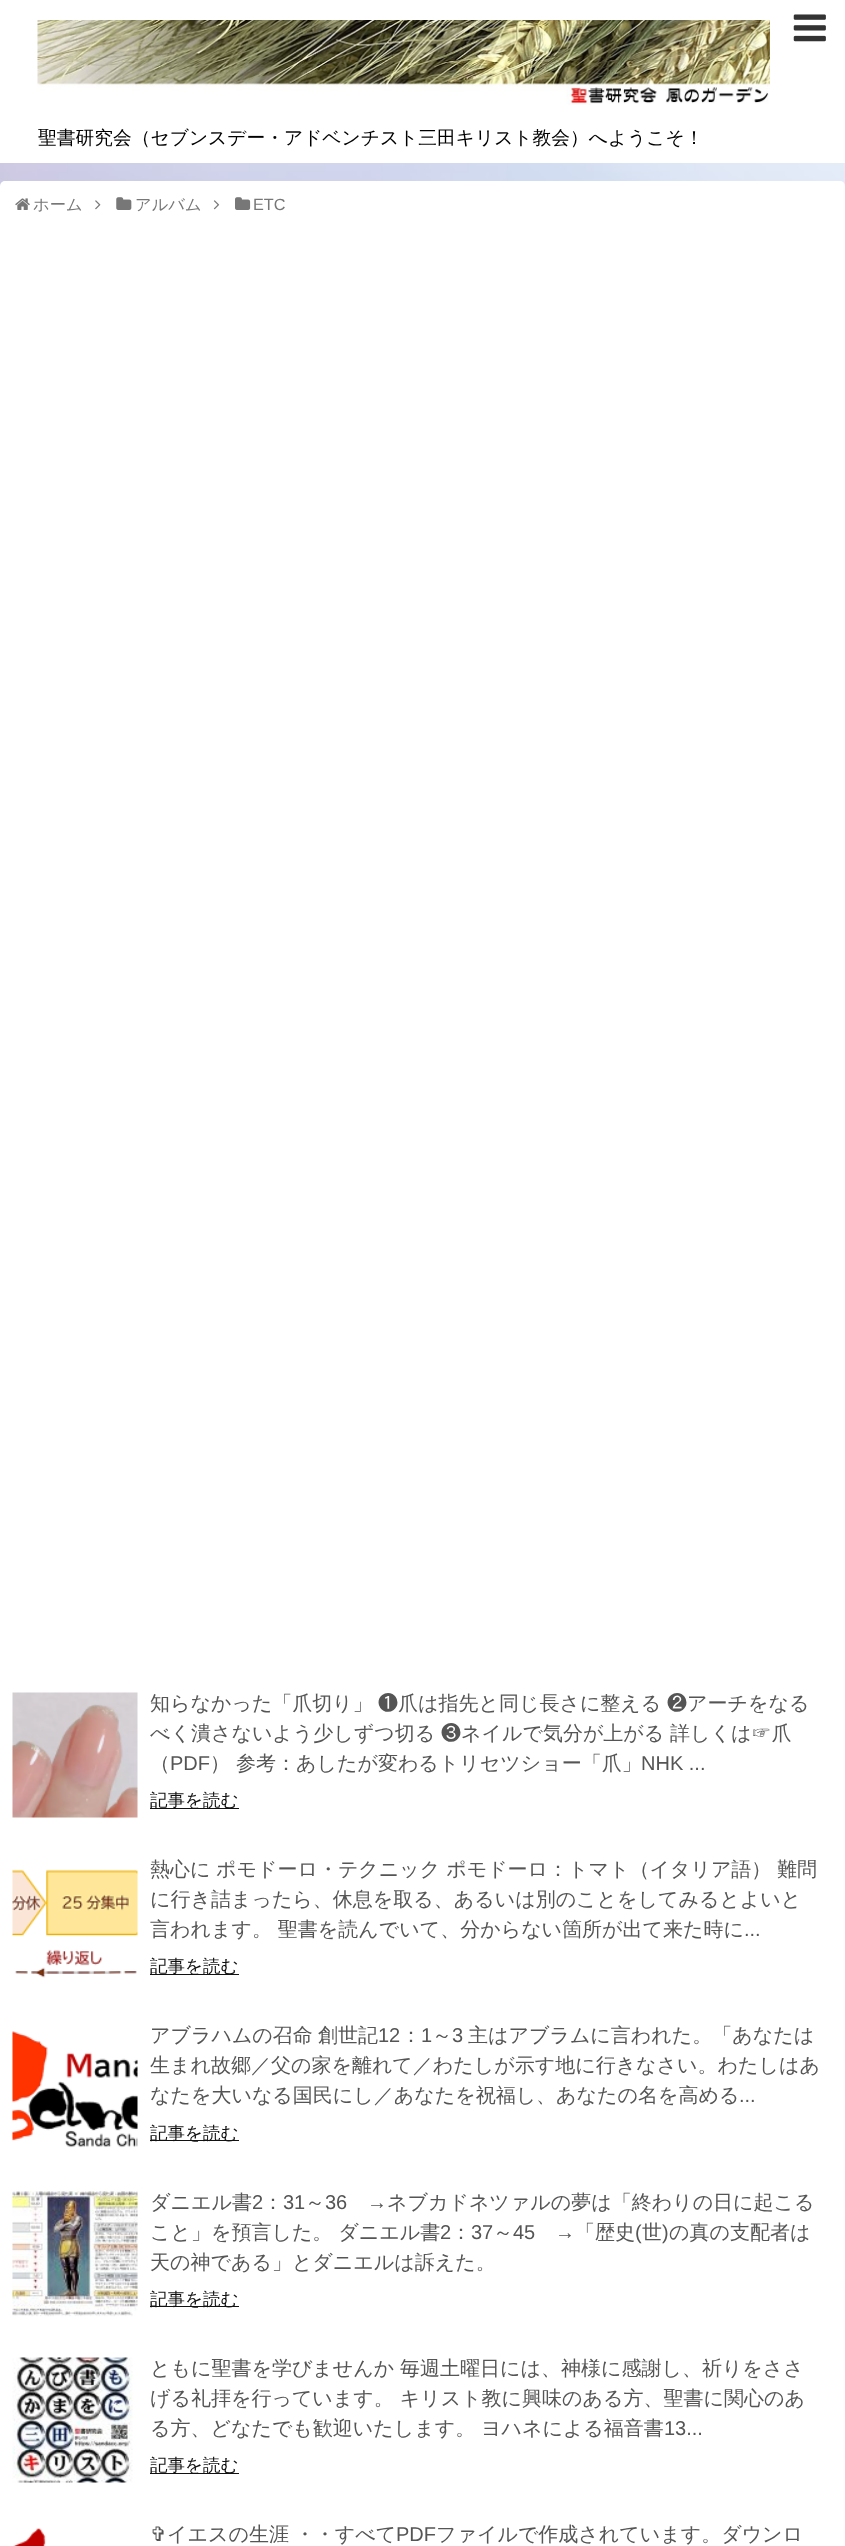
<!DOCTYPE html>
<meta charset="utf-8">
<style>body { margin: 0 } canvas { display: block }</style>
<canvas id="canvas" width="845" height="2546"></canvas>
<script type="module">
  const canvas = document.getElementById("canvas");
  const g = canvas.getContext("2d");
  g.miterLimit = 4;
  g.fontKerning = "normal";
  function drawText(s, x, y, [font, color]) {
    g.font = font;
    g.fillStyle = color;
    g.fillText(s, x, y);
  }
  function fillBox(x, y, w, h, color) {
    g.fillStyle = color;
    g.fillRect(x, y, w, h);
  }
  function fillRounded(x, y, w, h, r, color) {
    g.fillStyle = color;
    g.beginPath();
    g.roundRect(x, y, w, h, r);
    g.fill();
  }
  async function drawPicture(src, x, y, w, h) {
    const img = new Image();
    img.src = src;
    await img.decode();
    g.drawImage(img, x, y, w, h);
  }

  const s1 = ["500 18.75px WenQuanYi Zen Hei", "#000000"];
  const s2 = ["500 16.25px WenQuanYi Zen Hei", "#777777"];
  const s3 = ["16.25px Liberation Sans", "#777777"];
  const s4 = ["500 20px WenQuanYi Zen Hei", "#555555"];
  const s5 = ["20px IPAPGothic", "#555555"];
  const s6 = ["20px Liberation Sans", "#555555"];
  const s7 = ["500 17.5px WenQuanYi Zen Hei", "#111111"];
  const s8 = ["20px DejaVu Sans", "#555555"];

  fillBox(0, 0, 845, 2546, "#FFFFFF");
  await drawPicture("pic1.png", 0, 163, 845, 23);
  await drawPicture("pic2.png", 793, 14, 33, 28);
  await drawPicture("pic3.png", 37, 20, 733, 85);
  drawText("聖書研究会（セブンスデー・アドベンチスト三田キリスト教会）へようこそ！", 38, 144, s1);
  fillRounded(0, 181, 845, 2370, 5, "#FFFFFF");
  await drawPicture("pic4.png", 15, 198, 15, 12);
  drawText("ホーム", 33, 210, s2);
  await drawPicture("pic5.png", 95, 200, 6, 10);
  await drawPicture("pic6.png", 116, 197, 16, 13);
  drawText("アルバム", 135, 210, s2);
  await drawPicture("pic7.png", 213, 200, 7, 10);
  await drawPicture("pic8.png", 235, 197, 16, 13);
  drawText("ETC", 253, 210, s3);
  await drawPicture("pic9.png", 12, 1692, 126, 126);
  drawText("知らなかった「爪切り」", 150, 1710, s4);
  drawText("❶", 378, 1710, s5);
  drawText("爪は指先と同じ長さに整える", 398, 1710, s4);
  drawText("❷", 667, 1710, s5);
  drawText("アーチをなる", 687, 1710, s4);
  drawText("べく潰さないよう少しずつ切る", 150, 1740, s4);
  drawText("❸", 441, 1740, s5);
  drawText("ネイルで気分が上がる", 461, 1740, s4);
  drawText("詳しくは☞爪", 670, 1740, s4);
  drawText("（", 150, 1770, s4);
  drawText("PDF", 170, 1770, s6);
  drawText("）", 210, 1770, s4);
  drawText("参考：あしたが変わるトリセツショー「爪」", 236, 1770, s4);
  drawText("NHK ...", 641, 1770, s6);
  fillBox(150, 1808, 89, 1, "#111111");
  drawText("記事を読む", 150, 1806, s7);
  await drawPicture("pic10.png", 12, 1869, 126, 109);
  drawText("熱心に", 150, 1876, s4);
  drawText("ポモドーロ・テクニック ポモドーロ：トマト（イタリア語）", 216, 1876, s4);
  drawText("難問", 777, 1876, s4);
  drawText("に行き詰まったら、休息を取る、あるいは別のことをしてみるとよいと", 150, 1906, s4);
  drawText("言われます。 聖書を読んでいて、分からない箇所が出て来た時に", 150, 1936, s4);
  drawText("...", 744, 1936, s6);
  fillBox(150, 1974, 89, 1, "#111111");
  drawText("記事を読む", 150, 1972, s7);
  await drawPicture("pic11.png", 12, 2031, 126, 117);
  drawText("アブラハムの召命", 150, 2042, s4);
  drawText("創世記", 318, 2042, s4);
  drawText("12", 378, 2042, s6);
  drawText("：", 401, 2042, s4);
  drawText("1", 421, 2042, s6);
  drawText("～", 432, 2042, s4);
  drawText("3", 452, 2042, s6);
  drawText("主はアブラムに言われた。「あなたは", 468, 2042, s4);
  drawText("生まれ故郷／父の家を離れて／わたしが示す地に行きなさい。わたしはあ", 150, 2072, s4);
  drawText("なたを大いなる国民にし／あなたを祝福し、あなたの名を高める", 150, 2102, s4);
  drawText("...", 739, 2102, s6);
  fillBox(150, 2140, 89, 1, "#111111");
  drawText("記事を読む", 150, 2139, s7);
  await drawPicture("pic12.png", 12, 2191, 126, 126);
  drawText("ダニエル書", 150, 2209, s4);
  drawText("2", 252, 2209, s6);
  drawText("：", 263, 2209, s4);
  drawText("31", 283, 2209, s6);
  drawText("～", 305, 2209, s4);
  drawText("36", 325, 2209, s6);
  drawText("→", 367, 2209, s6);
  drawText("ネブカドネツァルの夢は「終わりの日に起こる", 387, 2209, s4);
  drawText("こと」を預言した。 ダニエル書", 150, 2239, s4);
  drawText("2", 440, 2239, s6);
  drawText("：", 451, 2239, s4);
  drawText("37", 471, 2239, s6);
  drawText("～", 493, 2239, s4);
  drawText("45", 513, 2239, s6);
  drawText("→", 555, 2239, s6);
  drawText("「歴史", 575, 2239, s4);
  drawText("(", 635, 2239, s6);
  drawText("世", 642, 2239, s4);
  drawText(")", 662, 2239, s6);
  drawText("の真の支配者は", 669, 2239, s4);
  drawText("天の神である」とダニエルは訴えた。", 150, 2269, s4);
  fillBox(150, 2306, 89, 1, "#111111");
  drawText("記事を読む", 150, 2305, s7);
  await drawPicture("pic13.png", 12, 2357, 121, 126);
  drawText("ともに聖書を学びませんか", 150, 2375, s4);
  drawText("毎週土曜日には、神様に感謝し、祈りをささ", 400, 2375, s4);
  drawText("げる礼拝を行っています。 キリスト教に興味のある方、聖書に関心のあ", 150, 2405, s4);
  drawText("る方、どなたでも歓迎いたします。", 150, 2435, s4);
  drawText("ヨハネによる福音書", 481, 2435, s4);
  drawText("13...", 664, 2435, s6);
  fillBox(150, 2473, 89, 1, "#111111");
  drawText("記事を読む", 150, 2471, s7);
  await drawPicture("pic14.png", 13, 2528, 33, 18);
  drawText("✞", 150, 2541, s8);
  drawText("イエスの生涯 ・・すべて", 167, 2541, s4);
  drawText("PDF", 396, 2541, s6);
  drawText("ファイルで作成されています。ダウンロ", 436, 2541, s4);
</script>
